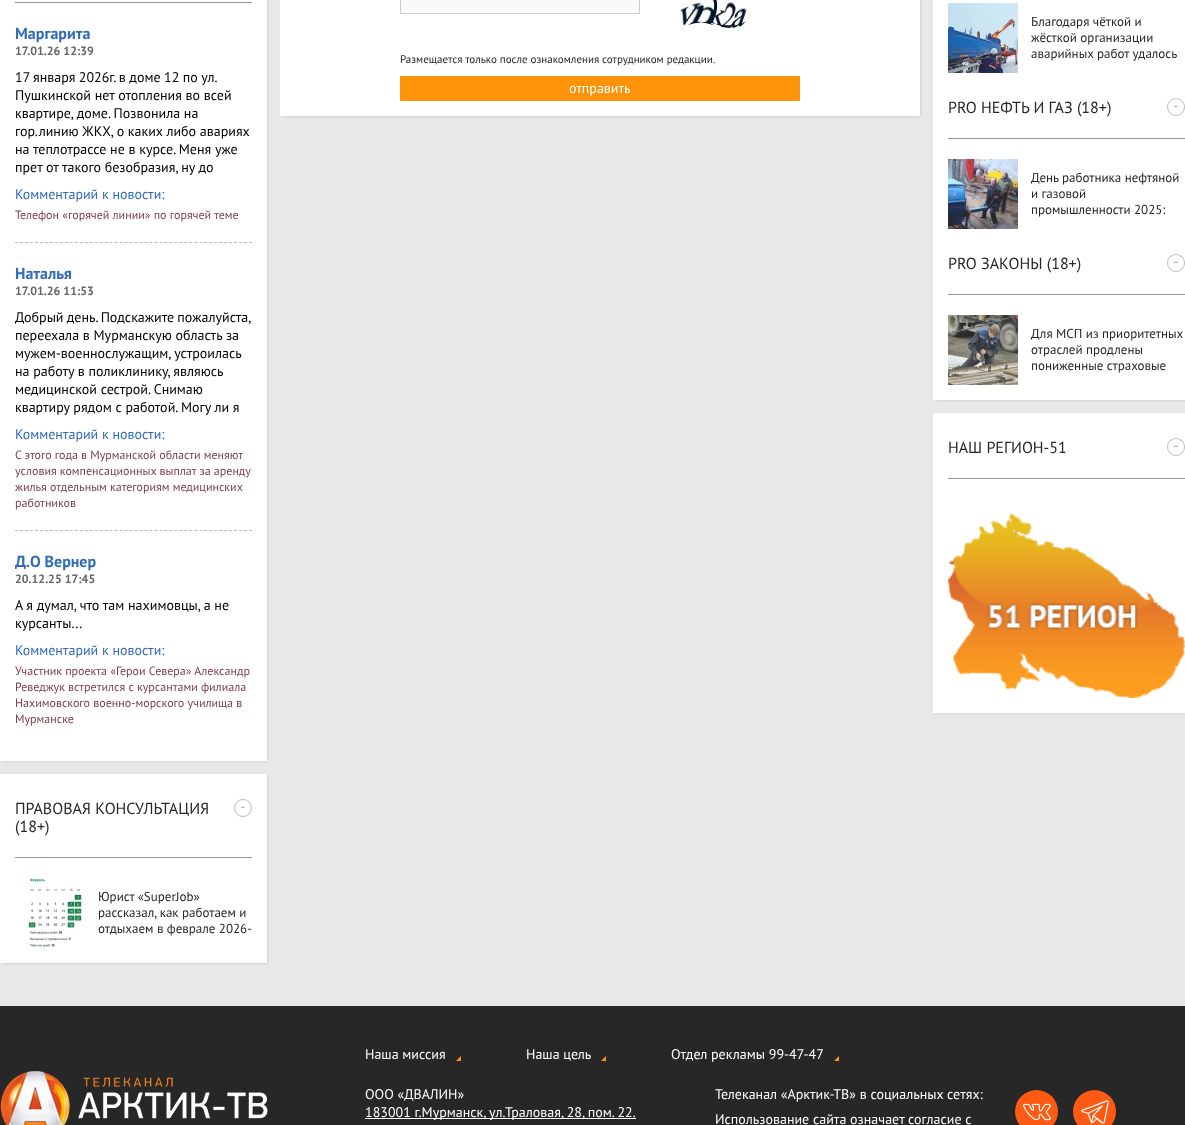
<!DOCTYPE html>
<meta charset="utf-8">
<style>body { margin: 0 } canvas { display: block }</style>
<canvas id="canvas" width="1185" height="1125"></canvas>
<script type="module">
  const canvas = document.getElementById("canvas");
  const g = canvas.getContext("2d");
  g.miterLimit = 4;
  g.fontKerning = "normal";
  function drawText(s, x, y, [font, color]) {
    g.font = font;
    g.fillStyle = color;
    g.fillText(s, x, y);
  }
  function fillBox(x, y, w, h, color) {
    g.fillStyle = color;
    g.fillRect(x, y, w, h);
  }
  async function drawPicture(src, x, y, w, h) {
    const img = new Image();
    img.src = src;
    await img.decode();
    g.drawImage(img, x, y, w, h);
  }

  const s1 = ["bold 16px PT Sans", "#316BB9"];
  const s2 = ["bold 12px PT Sans", "#666666"];
  const s3 = ["14px PT Sans", "#000000"];
  const s4 = ["14px PT Sans", "#316BB9"];
  const s5 = ["12px PT Sans", "#813E49"];
  const s6 = ["16px PT Sans", "#272727"];
  const s7 = ["16px PT Sans", "#BBBBBB"];
  const s8 = ["13px PT Sans", "#272727"];
  const s9 = ["11px PT Sans", "#272727"];
  const s10 = ["14px PT Sans", "#FFFFFF"];

  fillBox(0, 0, 1185, 1125, "#E8E8E8");
  g.fillStyle = "rgba(100, 100, 100, 0.3)";
  g.filter = "blur(1.5px)";
  g.beginPath();
  g.rect(2, -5, 265, 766);
  g.fill();
  g.filter = "none";
  fillBox(0, 0, 267, 761, "#FFFFFF");
  fillBox(15, 2, 237, 1, "#999999");
  g.beginPath();
  g.moveTo(15, 242.5);
  g.lineTo(252, 242.5);
  g.strokeStyle = "#BBBBBB";
  g.setLineDash([3, 1.98]);
  g.stroke();
  drawText("Маргарита", 15, 39, s1);
  drawText("17.01.26 12:39", 15, 55, s2);
  g.wordSpacing = "-0.25px";
  drawText("17 января 2026г. в доме 12 по ул.", 15, 82, s3);
  g.wordSpacing = "0px";
  drawText("Пушкинской нет отопления во всей", 15, 100, s3);
  drawText("квартире, доме. Позвонила на", 15, 118, s3);
  drawText("гор.линию ЖКХ, о каких либо авариях", 15, 136, s3);
  drawText("на теплотрассе не в курсе. Меня уже", 15, 154, s3);
  drawText("прет от такого безобразия, ну до", 15, 172, s3);
  drawText("Комментарий к новости:", 15, 199, s4);
  drawText("Телефон «горячей линии» по горячей теме", 15, 219, s5);
  g.beginPath();
  g.moveTo(15, 530.5);
  g.lineTo(252, 530.5);
  g.stroke();
  drawText("Наталья", 15, 279, s1);
  drawText("17.01.26 11:53", 15, 295, s2);
  g.wordSpacing = "-0.5px";
  drawText("Добрый день. Подскажите пожалуйста,", 15, 322, s3);
  g.wordSpacing = "0px";
  drawText("переехала в Мурманскую область за", 15, 340, s3);
  drawText("мужем-военнослужащим, устроилась", 15, 358, s3);
  drawText("на работу в поликлинику, являюсь", 15, 376, s3);
  drawText("медицинской сестрой. Снимаю", 15, 394, s3);
  drawText("квартиру рядом с работой. Могу ли я", 15, 412, s3);
  drawText("Комментарий к новости:", 15, 439, s4);
  drawText("С этого года в Мурманской области меняют", 15, 459, s5);
  drawText("условия компенсационных выплат за аренду", 15, 475, s5);
  drawText("жилья отдельным категориям медицинских", 15, 491, s5);
  drawText("работников", 15, 507, s5);
  drawText("Д.О Вернер", 15, 567, s1);
  drawText("20.12.25 17:45", 15, 583, s2);
  drawText("А я думал, что там нахимовцы, а не", 15, 610, s3);
  drawText("курсанты...", 15, 628, s3);
  drawText("Комментарий к новости:", 15, 655, s4);
  drawText("Участник проекта «Герои Севера» Александр", 15, 675, s5);
  drawText("Реведжук встретился с курсантами филиала", 15, 691, s5);
  drawText("Нахимовского военно-морского училища в", 15, 707, s5);
  drawText("Мурманске", 15, 723, s5);
  g.fillStyle = "rgba(100, 100, 100, 0.3)";
  g.filter = "blur(1.5px)";
  g.beginPath();
  g.rect(2, 776, 265, 187);
  g.fill();
  g.filter = "none";
  fillBox(0, 774, 267, 189, "#FFFFFF");
  fillBox(15, 857, 237, 1, "#999999");
  drawText("ПРАВОВАЯ КОНСУЛЬТАЦИЯ", 15, 814, s6);
  drawText("(18+)", 15, 832, s6);
  g.beginPath();
  g.arc(243, 808, 8.5, 0, Math.PI * 2);
  g.setLineDash([]);
  g.stroke();
  drawText("-", 240, 812, s7);
  await drawPicture("pic1.png", 27, 878, 56, 70);
  drawText("Юрист «SuperJob»", 98, 901, s8);
  drawText("рассказал, как работаем и", 98, 917, s8);
  drawText("отдыхаем в феврале 2026-", 98, 933, s8);
  g.fillStyle = "rgba(100, 100, 100, 0.3)";
  g.filter = "blur(1.5px)";
  g.beginPath();
  g.rect(282, -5, 638, 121);
  g.fill();
  g.filter = "none";
  fillBox(280, 0, 640, 116, "#FFFFFF");
  g.fillStyle = "#FAFAFA";
  g.beginPath();
  g.rect(400.5, -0.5, 239, 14);
  g.fill();
  g.strokeStyle = "#CCCCCC";
  g.stroke();
  await drawPicture("pic2.png", 675, 0, 77, 32);
  drawText("Размещается только после ознакомления сотрудником редакции.", 400, 63, s9);
  fillBox(400, 76, 400, 25, "#FD9308");
  drawText("отправить", 569, 93, s10);
  g.fillStyle = "rgba(100, 100, 100, 0.3)";
  g.filter = "blur(1.5px)";
  g.beginPath();
  g.rect(935, -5, 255, 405);
  g.fill();
  g.filter = "none";
  fillBox(933, 0, 252, 400, "#FFFFFF");
  await drawPicture("pic3.png", 948, 3, 70, 70);
  drawText("Благодаря чёткой и", 1031, 26, s8);
  drawText("жёсткой организации", 1031, 42, s8);
  drawText("аварийных работ удалось", 1031, 58, s8);
  fillBox(948, 138, 237, 1, "#999999");
  drawText("PRO НЕФТЬ И ГАЗ (18+)", 948, 113, s6);
  g.beginPath();
  g.arc(1176, 107, 8.5, 0, Math.PI * 2);
  g.strokeStyle = "#BBBBBB";
  g.stroke();
  drawText("-", 1173, 111, s7);
  await drawPicture("pic4.png", 948, 159, 70, 70);
  drawText("День работника нефтяной", 1031, 182, s8);
  drawText("и газовой", 1031, 198, s8);
  drawText("промышленности 2025:", 1031, 214, s8);
  fillBox(948, 294, 237, 1, "#999999");
  drawText("PRO ЗАКОНЫ (18+)", 948, 269, s6);
  g.beginPath();
  g.arc(1176, 263, 8.5, 0, Math.PI * 2);
  g.stroke();
  drawText("-", 1173, 267, s7);
  await drawPicture("pic5.png", 948, 315, 70, 70);
  drawText("Для МСП из приоритетных", 1031, 338, s8);
  drawText("отраслей продлены", 1031, 354, s8);
  drawText("пониженные страховые", 1031, 370, s8);
  g.fillStyle = "rgba(100, 100, 100, 0.3)";
  g.filter = "blur(1.5px)";
  g.beginPath();
  g.rect(935, 415, 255, 298);
  g.fill();
  g.filter = "none";
  fillBox(933, 413, 252, 300, "#FFFFFF");
  fillBox(948, 478, 237, 1, "#999999");
  drawText("НАШ РЕГИОН-51", 948, 453, s6);
  g.beginPath();
  g.arc(1176, 447, 8.5, 0, Math.PI * 2);
  g.stroke();
  drawText("-", 1173, 451, s7);
  await drawPicture("pic6.png", 948, 514, 237, 184);
  fillBox(0, 1006, 1185, 119, "#272727");
  await drawPicture("pic7.png", 0, 1071, 268, 54);
  await drawPicture("pic8.png", 456, 1056, 5, 5);
  drawText("Наша миссия", 365, 1059, s10);
  await drawPicture("pic8.png", 601, 1056, 5, 5);
  drawText("Наша цель", 526, 1059, s10);
  await drawPicture("pic8.png", 834, 1056, 5, 5);
  drawText("Отдел рекламы 99-47-47", 671, 1059, s10);
  drawText("ООО «ДВАЛИН»", 365, 1099, s10);
  fillBox(365, 1118, 271, 1, "#FFFFFF");
  drawText("183001 г.Мурманск, ул.Траловая, 28, пом. 22.", 365, 1117, s10);
  drawText("Телеканал «Арктик-ТВ» в социальных сетях:", 715, 1099, s10);
  drawText("Использование сайта означает согласие с", 715, 1124, s10);
  g.fillStyle = "#FE5A13";
  g.beginPath();
  g.arc(1036.5, 1111.5, 21.5, 0, Math.PI * 2);
  g.fill();
  await drawPicture("pic9.png", 1023, 1103, 28, 18);
  g.beginPath();
  g.arc(1094.5, 1111.5, 21.5, 0, Math.PI * 2);
  g.fill();
  await drawPicture("pic10.png", 1081, 1100, 28, 24);
</script>
